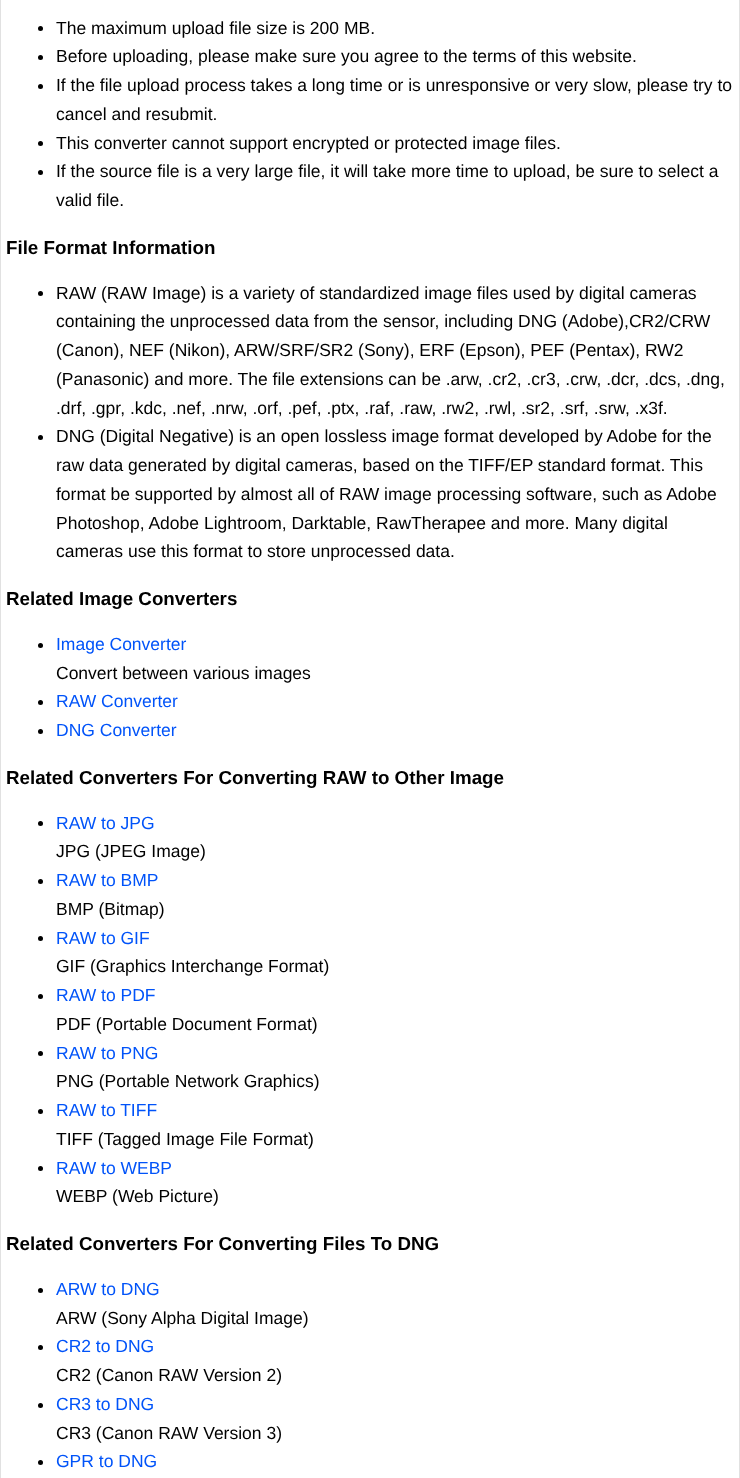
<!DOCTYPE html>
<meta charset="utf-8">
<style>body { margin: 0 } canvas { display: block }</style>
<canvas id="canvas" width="740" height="1478"></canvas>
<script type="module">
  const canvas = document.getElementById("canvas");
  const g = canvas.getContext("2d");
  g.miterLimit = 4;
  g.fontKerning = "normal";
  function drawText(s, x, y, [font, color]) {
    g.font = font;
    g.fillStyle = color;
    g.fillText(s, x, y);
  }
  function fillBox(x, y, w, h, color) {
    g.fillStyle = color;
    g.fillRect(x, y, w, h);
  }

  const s1 = ["17.5px Liberation Sans", "#000000"];
  const s2 = ["bold 18.75px Liberation Sans", "#000000"];
  const s3 = ["17.5px Liberation Sans", "#0053F9"];

  fillBox(0, 0, 740, 1478, "#FFFFFF");
  fillBox(739, 0, 1, 1478, "#E1E1E1");
  fillBox(0, 0, 1, 1478, "#E1E1E1");
  g.fillStyle = "#000000";
  g.beginPath();
  g.arc(40.5, 28.5, 2.5, 0, Math.PI * 2);
  g.fill();
  drawText("The maximum upload file size is 200 MB.", 56, 34, s1);
  g.beginPath();
  g.arc(40.5, 57.5, 2.5, 0, Math.PI * 2);
  g.fill();
  drawText("Before uploading, please make sure you agree to the terms of this website.", 56, 62, s1);
  g.beginPath();
  g.arc(40.5, 86.5, 2.5, 0, Math.PI * 2);
  g.fill();
  drawText("If the file upload process takes a long time or is unresponsive or very slow, please try to", 56, 91, s1);
  drawText("cancel and resubmit.", 56, 120, s1);
  g.beginPath();
  g.arc(40.5, 143.5, 2.5, 0, Math.PI * 2);
  g.fill();
  drawText("This converter cannot support encrypted or protected image files.", 56, 149, s1);
  g.beginPath();
  g.arc(40.5, 172.5, 2.5, 0, Math.PI * 2);
  g.fill();
  drawText("If the source file is a very large file, it will take more time to upload, be sure to select a", 56, 177, s1);
  drawText("valid file.", 56, 206, s1);
  drawText("File Format Information", 6, 254, s2);
  g.beginPath();
  g.arc(40.5, 293.5, 2.5, 0, Math.PI * 2);
  g.fill();
  drawText("RAW (RAW Image) is a variety of standardized image files used by digital cameras", 56, 299, s1);
  drawText("containing the unprocessed data from the sensor, including DNG (Adobe),CR2/CRW", 56, 327, s1);
  drawText("(Canon), NEF (Nikon), ARW/SRF/SR2 (Sony), ERF (Epson), PEF (Pentax), RW2", 56, 356, s1);
  drawText("(Panasonic) and more. The file extensions can be .arw, .cr2, .cr3, .crw, .dcr, .dcs, .dng,", 56, 385, s1);
  drawText(".drf, .gpr, .kdc, .nef, .nrw, .orf, .pef, .ptx, .raf, .raw, .rw2, .rwl, .sr2, .srf, .srw, .x3f.", 56, 414, s1);
  g.beginPath();
  g.arc(40.5, 437.5, 2.5, 0, Math.PI * 2);
  g.fill();
  drawText("DNG (Digital Negative) is an open lossless image format developed by Adobe for the", 56, 442, s1);
  drawText("raw data generated by digital cameras, based on the TIFF/EP standard format. This", 56, 471, s1);
  drawText("format be supported by almost all of RAW image processing software, such as Adobe", 56, 500, s1);
  drawText("Photoshop, Adobe Lightroom, Darktable, RawTherapee and more. Many digital", 56, 529, s1);
  drawText("cameras use this format to store unprocessed data.", 56, 557, s1);
  drawText("Related Image Converters", 6, 605, s2);
  g.beginPath();
  g.arc(40.5, 645.5, 2.5, 0, Math.PI * 2);
  g.fill();
  drawText("Image Converter", 56, 650, s3);
  drawText("Convert between various images", 56, 679, s1);
  g.beginPath();
  g.arc(40.5, 702.5, 2.5, 0, Math.PI * 2);
  g.fill();
  drawText("RAW Converter", 56, 707, s3);
  g.fillStyle = "#000000";
  g.beginPath();
  g.arc(40.5, 731.5, 2.5, 0, Math.PI * 2);
  g.fill();
  drawText("DNG Converter", 56, 736, s3);
  drawText("Related Converters For Converting RAW to Other Image", 6, 784, s2);
  g.beginPath();
  g.arc(40.5, 823.5, 2.5, 0, Math.PI * 2);
  g.fill();
  drawText("RAW to JPG", 56, 829, s3);
  drawText("JPG (JPEG Image)", 56, 857, s1);
  g.beginPath();
  g.arc(40.5, 881.5, 2.5, 0, Math.PI * 2);
  g.fill();
  drawText("RAW to BMP", 56, 886, s3);
  drawText("BMP (Bitmap)", 56, 915, s1);
  g.beginPath();
  g.arc(40.5, 938.5, 2.5, 0, Math.PI * 2);
  g.fill();
  drawText("RAW to GIF", 56, 944, s3);
  drawText("GIF (Graphics Interchange Format)", 56, 972, s1);
  g.beginPath();
  g.arc(40.5, 996.5, 2.5, 0, Math.PI * 2);
  g.fill();
  drawText("RAW to PDF", 56, 1001, s3);
  drawText("PDF (Portable Document Format)", 56, 1030, s1);
  g.beginPath();
  g.arc(40.5, 1053.5, 2.5, 0, Math.PI * 2);
  g.fill();
  drawText("RAW to PNG", 56, 1059, s3);
  drawText("PNG (Portable Network Graphics)", 56, 1087, s1);
  g.beginPath();
  g.arc(40.5, 1111.5, 2.5, 0, Math.PI * 2);
  g.fill();
  drawText("RAW to TIFF", 56, 1116, s3);
  drawText("TIFF (Tagged Image File Format)", 56, 1145, s1);
  g.beginPath();
  g.arc(40.5, 1168.5, 2.5, 0, Math.PI * 2);
  g.fill();
  drawText("RAW to WEBP", 56, 1174, s3);
  drawText("WEBP (Web Picture)", 56, 1202, s1);
  drawText("Related Converters For Converting Files To DNG", 6, 1250, s2);
  g.beginPath();
  g.arc(40.5, 1290.5, 2.5, 0, Math.PI * 2);
  g.fill();
  drawText("ARW to DNG", 56, 1295, s3);
  drawText("ARW (Sony Alpha Digital Image)", 56, 1324, s1);
  g.beginPath();
  g.arc(40.5, 1347.5, 2.5, 0, Math.PI * 2);
  g.fill();
  drawText("CR2 to DNG", 56, 1352, s3);
  drawText("CR2 (Canon RAW Version 2)", 56, 1381, s1);
  g.beginPath();
  g.arc(40.5, 1405.5, 2.5, 0, Math.PI * 2);
  g.fill();
  drawText("CR3 to DNG", 56, 1410, s3);
  drawText("CR3 (Canon RAW Version 3)", 56, 1439, s1);
  g.beginPath();
  g.arc(40.5, 1462.5, 2.5, 0, Math.PI * 2);
  g.fill();
  drawText("GPR to DNG", 56, 1467, s3);
</script>
